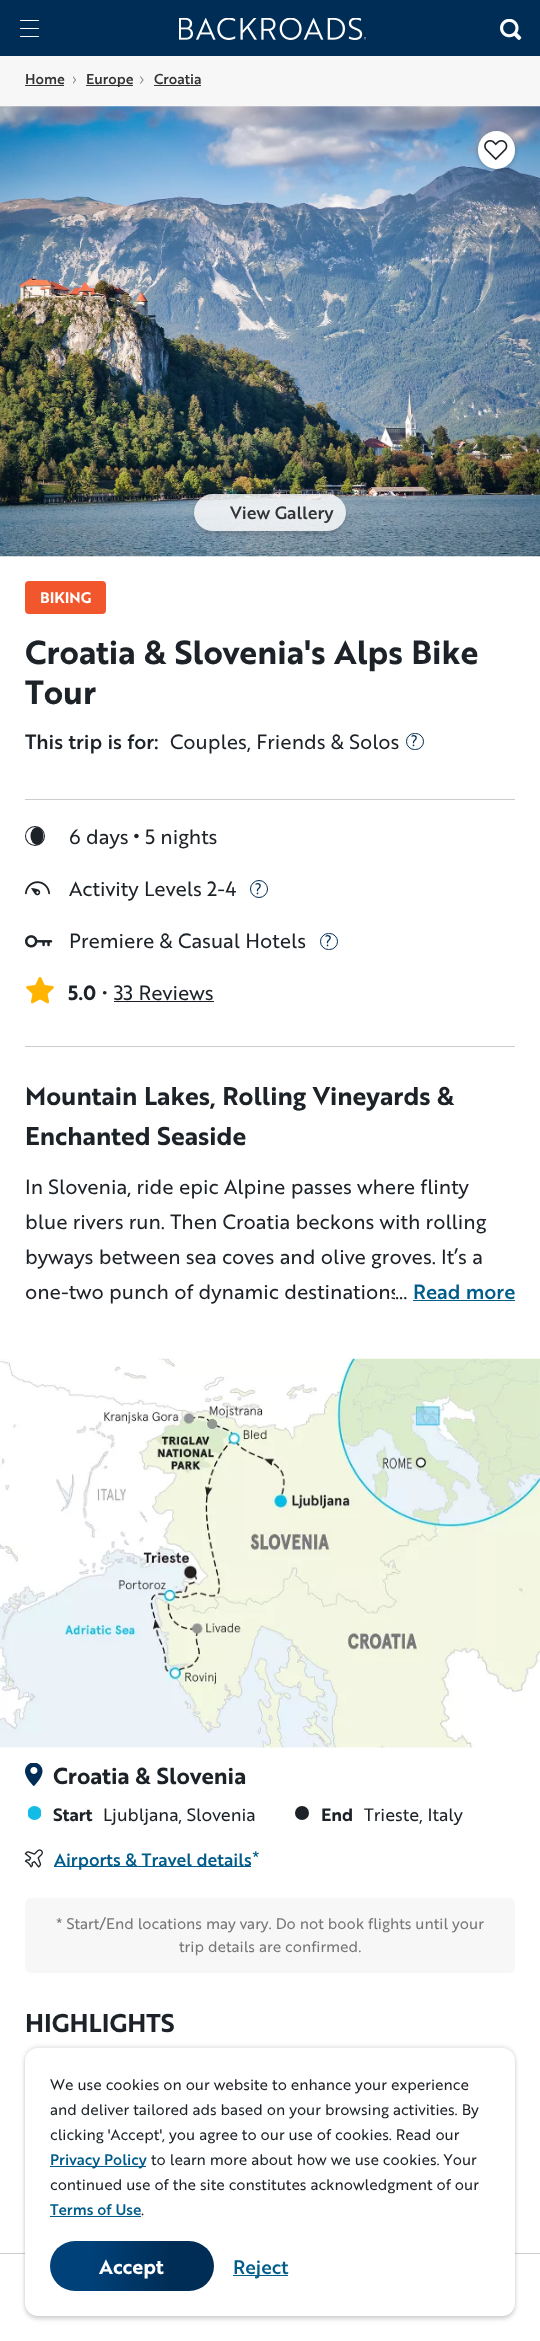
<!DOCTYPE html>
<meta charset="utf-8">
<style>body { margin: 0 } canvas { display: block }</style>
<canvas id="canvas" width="540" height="2341"></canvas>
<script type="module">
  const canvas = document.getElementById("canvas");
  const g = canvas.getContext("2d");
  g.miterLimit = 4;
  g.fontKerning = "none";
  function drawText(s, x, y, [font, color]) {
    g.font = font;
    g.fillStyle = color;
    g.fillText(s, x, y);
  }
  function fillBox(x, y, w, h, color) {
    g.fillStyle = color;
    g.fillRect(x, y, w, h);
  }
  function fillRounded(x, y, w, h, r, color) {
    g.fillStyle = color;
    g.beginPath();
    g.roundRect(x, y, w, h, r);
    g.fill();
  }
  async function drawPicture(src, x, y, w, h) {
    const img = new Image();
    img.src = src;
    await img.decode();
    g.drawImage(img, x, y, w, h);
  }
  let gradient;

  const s1 = ["500 14px 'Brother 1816'", "#333333"];
  const s2 = ["500 17.5px 'Brother 1816'", "#333333"];
  const s3 = ["bold 15px 'Brother 1816'", "#FFFFFF"];
  const s4 = ["bold 32.5px 'Brother 1816'", "#1C2227"];
  const s5 = ["500 20px 'Brother 1816'", "#1C2227"];
  const s6 = ["20px 'Brother 1816'", "#1C2227"];
  const s7 = ["15px 'Brother 1816'", "#002D55"];
  const s8 = ["25px 'Brother 1816'", "#1C2227"];
  const s9 = ["bold 20px 'Brother 1816'", "#1C2227"];
  const s10 = ["bold 25px 'Brother 1816'", "#1C2227"];
  const s11 = ["500 20px 'Brother 1816'", "#005C8A"];
  const s12 = ["bold 22.5px 'Brother 1816'", "#1C2227"];
  const s13 = ["bold 17.5px 'Brother 1816'", "#1C2227"];
  const s14 = ["17.5px 'Brother 1816'", "#1C2227"];
  const s15 = ["500 17.5px 'Brother 1816'", "#005C8A"];
  const s16 = ["17.5px 'Brother 1816'", "#005C8A"];
  const s17 = ["15px 'Brother 1816'", "#777777"];
  const s18 = ["15px 'Brother 1816'", "#1C2227"];
  const s19 = ["500 15px 'Brother 1816'", "#005C8A"];
  const s20 = ["bold 20px 'Brother 1816'", "#FFFFFF"];
  const s21 = ["500 19px 'Brother 1816'", "#005C8A"];

  fillBox(0, 0, 540, 2341, "#FFFFFF");
  fillBox(0, 0, 540, 56, "#002D55");
  fillRounded(20, 20, 19, 1, 0.5, "#FFFFFF");
  fillRounded(20, 28, 19, 1, 0.5, "#FFFFFF");
  fillRounded(20, 36, 19, 1, 0.5, "#FFFFFF");
  await drawPicture("pic1.png", 179, 18, 187, 22);
  await drawPicture("pic2.png", 500, 19, 22, 21);
  fillBox(0, 56, 540, 50, "#F7F7F7");
  drawText("Home", 25, 84, s1);
  fillBox(25, 85, 39, 1, "#333333");
  await drawPicture("pic3.png", 73, 76, 3, 8);
  fillBox(86, 85, 47, 1, "#333333");
  drawText("Europe", 86, 84, s1);
  await drawPicture("pic4.png", 140, 76, 4, 8);
  drawText("Croatia", 154, 84, s1);
  fillBox(154, 85, 47, 1, "#333333");
  await drawPicture("pic5.png", 0, 106, 540, 451);
  g.fillStyle = "rgba(0, 0, 0, 0.08)";
  g.filter = "blur(2px)";
  g.beginPath();
  g.roundRect(478, 130, 37, 38, 18.5);
  g.fill();
  g.filter = "none";
  g.fillStyle = "rgba(0, 0, 0, 0.17)";
  g.filter = "blur(2px)";
  g.beginPath();
  g.roundRect(478, 134, 37, 37, 18.5);
  g.fill();
  g.filter = "none";
  fillRounded(478, 131, 37, 38, 18.5, "#FFFFFF");
  await drawPicture("pic6.png", 484, 140, 24, 20);
  g.save();
  g.beginPath();
  g.moveTo(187, 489);
  g.lineTo(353, 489);
  g.lineTo(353, 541);
  g.lineTo(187, 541);
  g.closePath();
  g.moveTo(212.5, 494);
  g.lineTo(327.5, 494);
  g.bezierCurveTo(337.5, 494, 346, 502.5, 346, 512.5);
  g.bezierCurveTo(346, 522.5, 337.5, 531, 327.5, 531);
  g.lineTo(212.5, 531);
  g.bezierCurveTo(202.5, 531, 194, 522.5, 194, 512.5);
  g.bezierCurveTo(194, 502.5, 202.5, 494, 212.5, 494);
  g.closePath();
  g.clip("evenodd");
  g.fillStyle = "rgba(0, 0, 0, 0.17)";
  g.filter = "blur(2px)";
  g.beginPath();
  g.roundRect(194, 496, 152, 38, 19);
  g.fill();
  g.filter = "none";
  g.restore();
  fillRounded(194, 494, 152, 37, 18.5, "rgba(255, 255, 255, 0.8)");
  drawText("View Gallery", 230, 519, s2);
  fillRounded(25, 581, 81, 33, 4, "#F1562D");
  drawText("BIKING", 40, 603, s3);
  drawText("Croatia & Slovenia's Alps Bike", 25, 664, s4);
  drawText("Tour", 25, 704, s4);
  drawText("This trip is for:", 25, 749, s5);
  drawText("Couples, Friends & Solos", 170, 749, s6);
  g.beginPath();
  g.roundRect(406.5, 733.5, 17, 16, 8);
  g.strokeStyle = "#002D55";
  g.stroke();
  drawText("?", 411, 746, s7);
  fillBox(25, 799, 490, 1, "#CCCCCC");
  g.fillStyle = "#1C2227";
  g.beginPath();
  g.arc(35, 836, 10, 0, Math.PI * 2);
  g.fill();
  g.fillStyle = "#FFFFFF";
  g.beginPath();
  g.arc(35, 836, 9, 0, Math.PI * 2);
  g.fill();
  g.fillStyle = "#1C2227";
  g.beginPath();
  g.ellipse(37, 836, 6.5, 9, 0, 0, Math.PI * 2);
  g.fill();
  drawText("6 days", 69, 844, s6);
  drawText("•", 133, 845, s8);
  drawText("5 nights", 145, 844, s6);
  await drawPicture("pic7.png", 25, 881, 25, 15);
  drawText("Activity Levels 2-4", 69, 896, s6);
  g.beginPath();
  g.arc(259, 889, 8.5, 0, Math.PI * 2);
  g.stroke();
  drawText("?", 255, 894, s7);
  await drawPicture("pic8.png", 25, 935, 28, 13);
  drawText("Premiere & Casual Hotels", 69, 948, s6);
  g.beginPath();
  g.roundRect(320.5, 933.5, 17, 16, 8);
  g.stroke();
  drawText("?", 325, 946, s7);
  await drawPicture("pic9.png", 26, 977, 28, 27);
  drawText("5.0", 68, 1000, s9);
  drawText("•", 102, 1000, s6);
  drawText("33 Reviews", 114, 1000, s6);
  fillBox(114, 1001, 100, 1, "#1C2227");
  fillBox(25, 1046, 490, 1, "#CCCCCC");
  drawText("Mountain Lakes, Rolling Vineyards &", 25, 1105, s10);
  drawText("Enchanted Seaside", 25, 1145, s10);
  drawText("In Slovenia, ride epic Alpine passes where flinty", 25, 1194, s6);
  drawText("blue rivers run. Then Croatia beckons with rolling", 25, 1229, s6);
  drawText("byways between sea coves and olive groves. It’s a", 25, 1264, s6);
  drawText("one-two punch of dynamic destinations", 25, 1299, s6);
  fillBox(395, 1288, 4, 12, "#FFFFFF");
  drawText("...", 395, 1299, s6);
  drawText("Read more", 413, 1299, s11);
  fillBox(413, 1300, 102, 1, "#005C8A");
  await drawPicture("pic10.png", 0, 1358, 540, 390);
  await drawPicture("pic11.png", 25, 1763, 18, 23);
  drawText("Croatia & Slovenia", 53, 1784, s12);
  g.save();
  g.beginPath();
  g.rect(28, 1806, 13, 14);
  g.clip();
  g.fillStyle = "#13BCE6";
  g.beginPath();
  g.arc(34.5, 1813, 7, 0, Math.PI * 2);
  g.fill();
  g.restore();
  drawText("Start", 53, 1821, s13);
  drawText("Ljubljana, Slovenia", 103, 1821, s14);
  g.beginPath();
  g.arc(302, 1813, 7, 0, Math.PI * 2);
  g.fill();
  drawText("End", 321, 1821, s13);
  drawText("Trieste, Italy", 364, 1821, s14);
  await drawPicture("pic12.png", 24, 1849, 19, 19);
  fillBox(54, 1866, 197, 1, "#005C8A");
  drawText("Airports & Travel details", 54, 1866, s15);
  drawText("*", 252, 1864, s16);
  fillRounded(25, 1898, 490, 75, 6, "#F7F7F7");
  drawText("* Start/End locations may vary. Do not book flights until your", 56, 1929, s17);
  drawText("trip details are confirmed.", 179, 1952, s17);
  drawText("HIGHLIGHTS", 25, 2032, s10);
  fillBox(0, 2253, 540, 1, "#CCCCCC");
  g.fillStyle = "rgba(0, 0, 0, 0.17)";
  g.filter = "blur(2px)";
  g.beginPath();
  g.roundRect(25, 2050, 490, 269, 13);
  g.fill();
  g.filter = "none";
  g.fillStyle = "rgba(0, 0, 0, 0.08)";
  g.filter = "blur(2px)";
  g.beginPath();
  g.roundRect(25, 2046, 490, 269, 13);
  g.fill();
  g.filter = "none";
  fillRounded(25, 2048, 490, 268, 13, "#FFFFFF");
  drawText("We use cookies on our website to enhance your experience", 50, 2090, s18);
  drawText("and deliver tailored ads based on your browsing activities. By", 50, 2115, s18);
  drawText("clicking 'Accept', you agree to our use of cookies. Read our", 50, 2140, s18);
  fillBox(50, 2166, 96, 1, "#005C8A");
  drawText("Privacy Policy", 50, 2165, s19);
  drawText("to learn more about how we use cookies. Your", 151, 2165, s18);
  drawText("continued use of the site constitutes acknowledgment of our", 50, 2190, s18);
  drawText("Terms of Use", 50, 2215, s19);
  fillBox(50, 2216, 91, 1, "#005C8A");
  drawText(".", 141, 2215, s18);
  gradient = g.createLinearGradient(214, 2268, 50, 2264);
  gradient.addColorStop(0.26, "#002D55");
  gradient.addColorStop(0.76, "#00417A");
  g.fillStyle = gradient;
  g.beginPath();
  g.roundRect(50, 2241, 164, 50, 25);
  g.fill();
  drawText("Accept", 99, 2274, s20);
  fillBox(233, 2275, 55, 1, "#005C8A");
  drawText("Reject", 233, 2274, s21);
</script>
